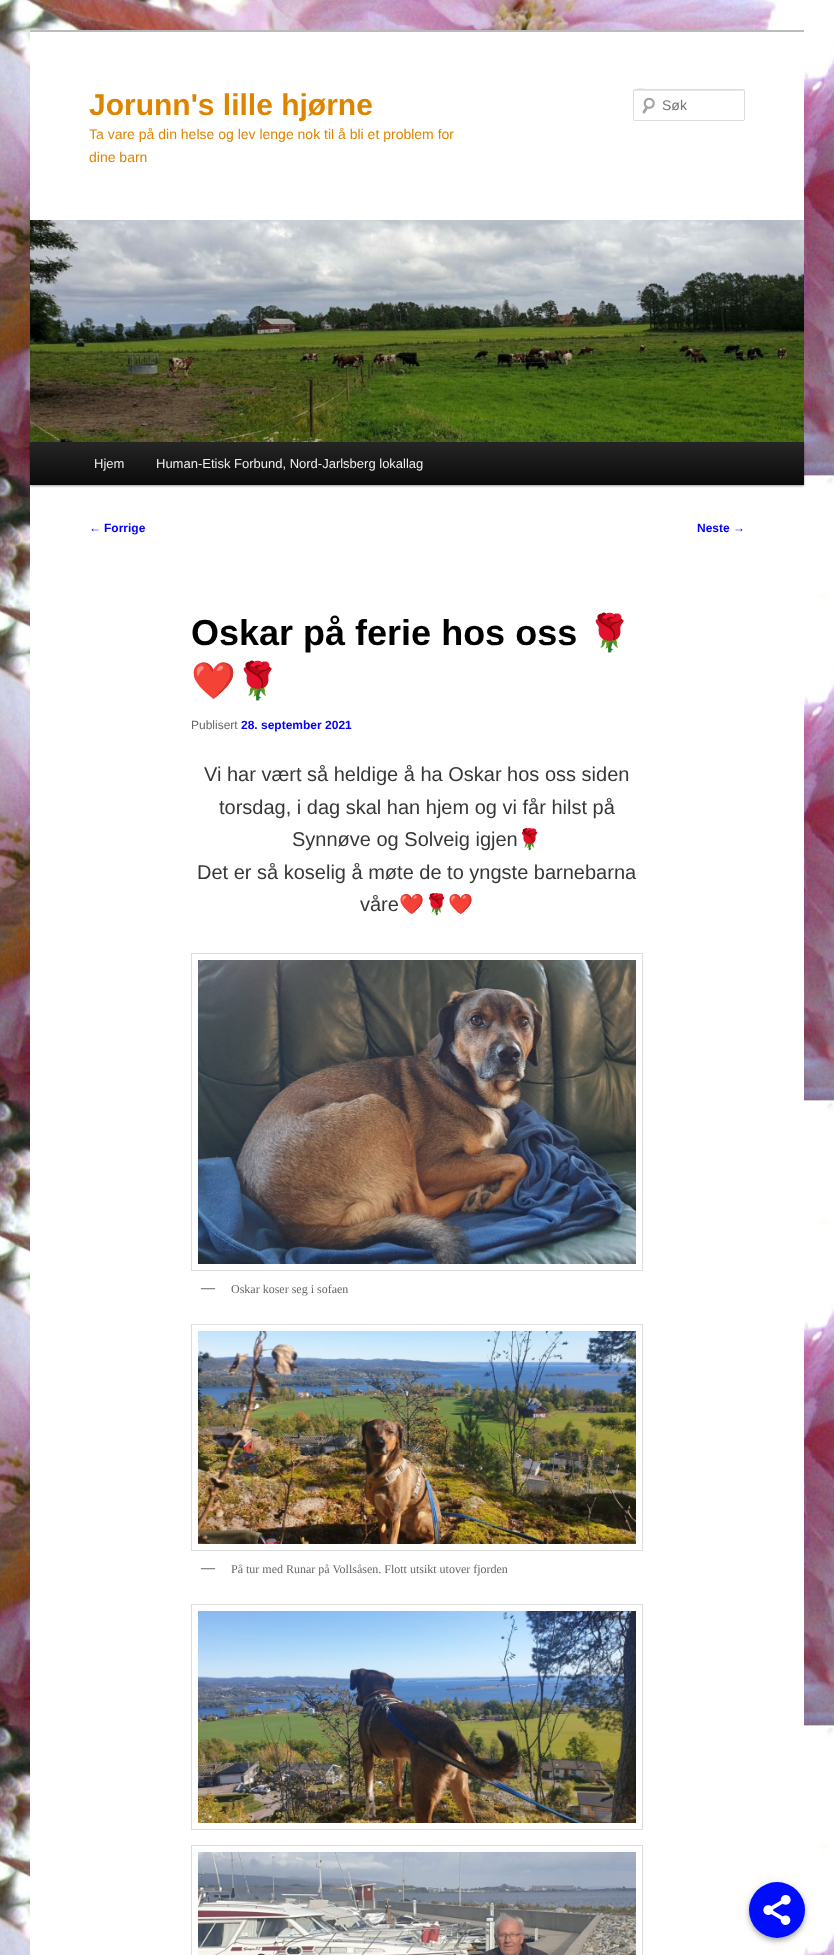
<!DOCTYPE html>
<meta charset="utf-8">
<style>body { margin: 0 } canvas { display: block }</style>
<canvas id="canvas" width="834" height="1955"></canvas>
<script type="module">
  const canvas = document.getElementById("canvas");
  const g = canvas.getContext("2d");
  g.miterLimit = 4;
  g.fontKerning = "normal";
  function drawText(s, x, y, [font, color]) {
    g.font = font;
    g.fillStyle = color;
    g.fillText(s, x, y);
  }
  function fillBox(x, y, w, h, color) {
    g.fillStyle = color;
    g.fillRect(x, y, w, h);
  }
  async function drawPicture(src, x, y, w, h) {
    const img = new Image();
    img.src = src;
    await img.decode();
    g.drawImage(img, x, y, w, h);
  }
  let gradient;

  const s1 = ["bold 30px Liberation Sans", "#DD8500"];
  const s2 = ["14px Liberation Sans", "#DD8500"];
  const s3 = ["14px Liberation Sans", "#757575"];
  const s4 = ["13px Liberation Sans", "#EEEEEE"];
  const s5 = ["12px Liberation Sans", "#0400FC"];
  const s6 = ["bold 12px Liberation Sans", "#0400FC"];
  const s7 = ["bold 36px Liberation Sans", "#000000"];
  const s8 = ["bold 36px Noto Color Emoji", "#000000"];
  const s9 = ["12px Liberation Sans", "#666666"];
  const s10 = ["20px Liberation Sans", "#373737"];
  const s11 = ["20px Noto Color Emoji", "#373737"];
  const s12 = ["bold 14px Liberation Serif", "#666666"];
  const s13 = ["12px Liberation Serif", "#666666"];

  fillBox(0, 0, 834, 1955, "#FFFFFF");
  await drawPicture("pic1.png", 0, 0, 834, 1955);
  fillBox(30, 32, 774, 1923, "#FFFFFF");
  fillBox(30, 30, 774, 2, "#BBBBBB");
  drawText("Jorunn's lille hjørne", 89, 115, s1);
  drawText("Ta vare på din helse og lev lenge nok til å bli et problem for", 89, 139, s2);
  drawText("dine barn", 89, 162, s2);
  await drawPicture("pic2.png", 642, 97, 13, 17);
  g.fillStyle = "#E6E6E6";
  g.beginPath();
  g.moveTo(635, 91);
  g.lineTo(744, 91);
  g.lineTo(744, 92);
  g.lineTo(743, 90);
  g.lineTo(653, 90);
  g.bezierCurveTo(649, 90, 634, 85, 634, 92);
  g.bezierCurveTo(634, 91, 634, 91, 635, 91);
  g.closePath();
  g.fill();
  g.beginPath();
  g.roundRect(633.5, 89.5, 111, 31, 1.5);
  g.strokeStyle = "#DDDDDD";
  g.stroke();
  drawText("Søk", 662, 110, s3);
  g.fillStyle = "rgba(0, 0, 0, 0.4)";
  g.filter = "blur(1px)";
  g.beginPath();
  g.rect(30, 443, 774, 43);
  g.fill();
  g.filter = "none";
  await drawPicture("pic3.png", 30, 220, 774, 222);
  gradient = g.createLinearGradient(417, 442, 417, 485);
  gradient.addColorStop(0, "#252525");
  gradient.addColorStop(1, "#0A0A0A");
  g.fillStyle = gradient;
  g.fillRect(30, 442, 774, 43);
  drawText("Hjem", 94, 468, s4);
  drawText("Human-Etisk Forbund, Nord-Jarlsberg lokallag", 156, 468, s4);
  drawText("←", 89, 532, s5);
  drawText("Forrige", 104, 532, s6);
  drawText("Neste", 697, 532, s6);
  drawText("→", 733, 532, s5);
  drawText("Oskar på ferie hos oss", 191, 645, s7);
  drawText("🌹", 587, 645, s8);
  drawText("❤️🌹", 191, 693, s8);
  drawText("Publisert", 191, 729, s9);
  drawText("28. september 2021", 241, 729, s6);
  drawText("Vi har vært så heldige å ha Oskar hos oss siden", 204, 781, s10);
  drawText("torsdag, i dag skal han hjem og vi får hilst på", 219, 814, s10);
  drawText("Synnøve og Solveig igjen", 292, 846, s10);
  drawText("🌹", 517, 846, s11);
  drawText("Det er så koselig å møte de to yngste barnebarna", 197, 879, s10);
  drawText("våre", 360, 911, s10);
  drawText("❤️🌹❤️", 399, 911, s11);
  g.strokeRect(191.5, 953.5, 451, 317);
  await drawPicture("pic4.png", 198, 960, 438, 304);
  drawText("—", 201, 1292, s12);
  drawText("Oskar koser seg i sofaen", 231, 1293, s13);
  g.strokeRect(191.5, 1324.5, 451, 226);
  await drawPicture("pic5.png", 198, 1331, 438, 213);
  drawText("—", 201, 1572, s12);
  drawText("På tur med Runar på Vollsåsen. Flott utsikt utover fjorden", 231, 1573, s13);
  g.strokeRect(191.5, 1604.5, 451, 225);
  await drawPicture("pic6.png", 198, 1611, 438, 212);
  g.strokeRect(191.5, 1845.5, 451, 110);
  await drawPicture("pic7.png", 198, 1852, 438, 103);
  g.fillStyle = "rgba(0, 0, 0, 0.12)";
  g.filter = "blur(5px)";
  g.beginPath();
  g.roundRect(749, 1883, 56, 56, 28);
  g.fill();
  g.filter = "none";
  g.fillStyle = "rgba(0, 0, 0, 0.14)";
  g.filter = "blur(2.5px)";
  g.beginPath();
  g.roundRect(749, 1886, 56, 56, 28);
  g.fill();
  g.filter = "none";
  g.fillStyle = "rgba(0, 0, 0, 0.2)";
  g.filter = "blur(2px)";
  g.beginPath();
  g.roundRect(750, 1885, 54, 54, 27);
  g.fill();
  g.filter = "none";
  g.fillStyle = "#000CFC";
  g.beginPath();
  g.arc(777, 1910, 28, 0, Math.PI * 2);
  g.fill();
  await drawPicture("pic8.png", 763, 1895, 28, 30);
</script>
